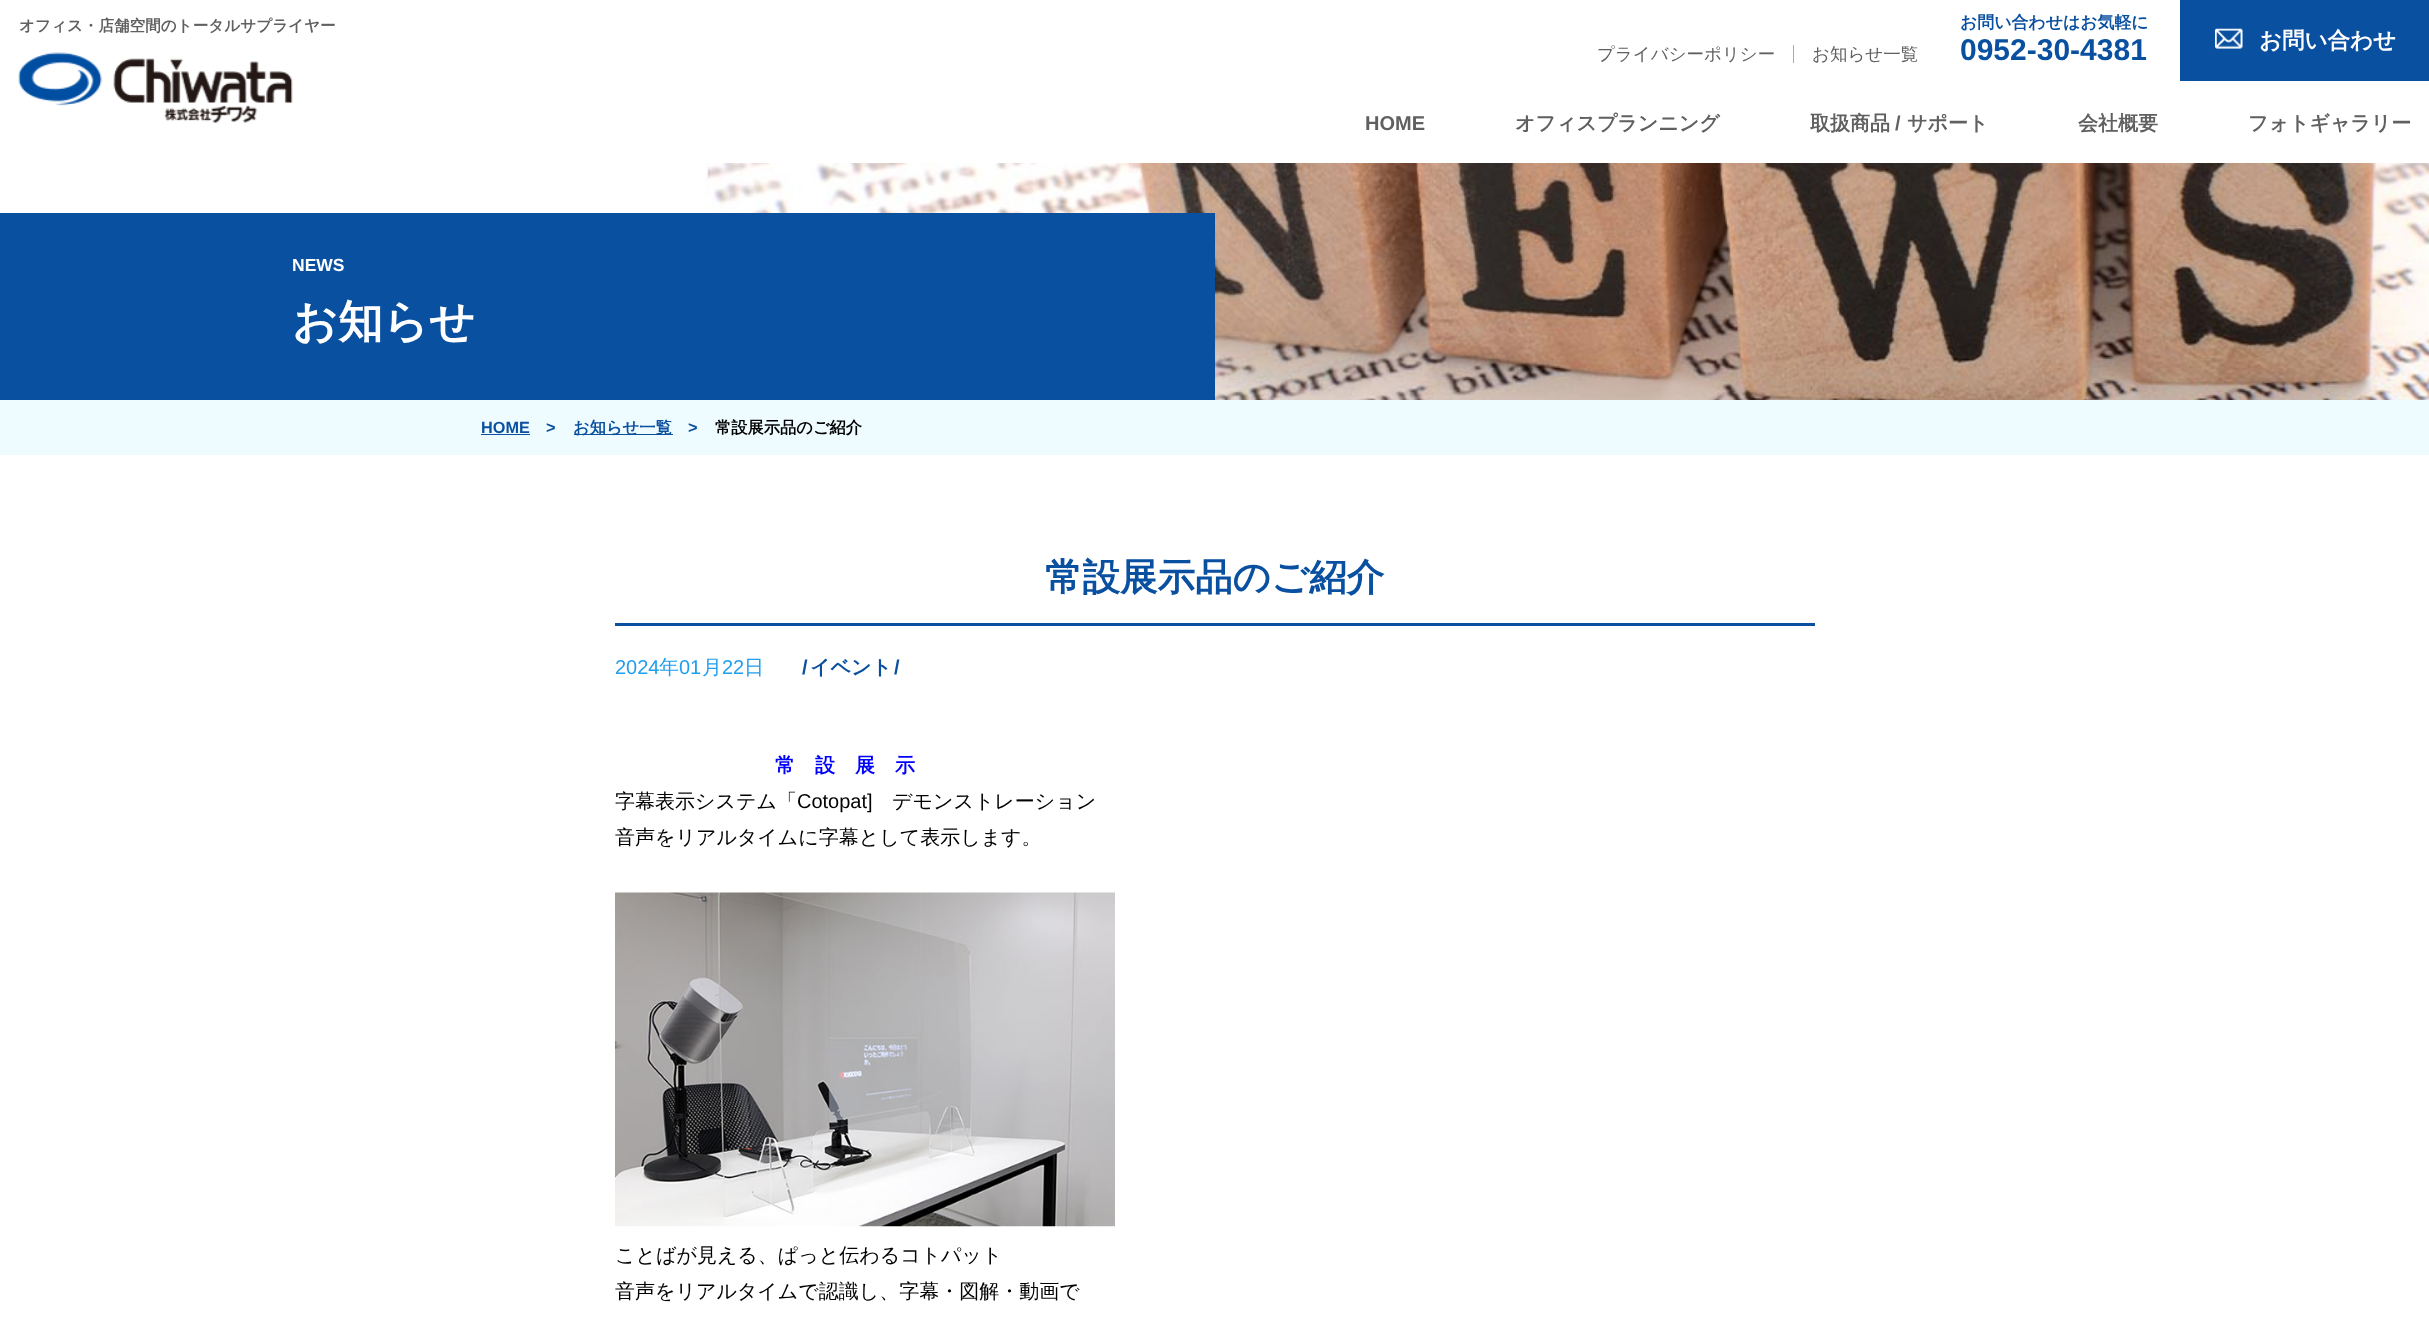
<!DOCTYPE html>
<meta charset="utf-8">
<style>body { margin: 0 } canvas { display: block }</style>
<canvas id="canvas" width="2429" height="1326"></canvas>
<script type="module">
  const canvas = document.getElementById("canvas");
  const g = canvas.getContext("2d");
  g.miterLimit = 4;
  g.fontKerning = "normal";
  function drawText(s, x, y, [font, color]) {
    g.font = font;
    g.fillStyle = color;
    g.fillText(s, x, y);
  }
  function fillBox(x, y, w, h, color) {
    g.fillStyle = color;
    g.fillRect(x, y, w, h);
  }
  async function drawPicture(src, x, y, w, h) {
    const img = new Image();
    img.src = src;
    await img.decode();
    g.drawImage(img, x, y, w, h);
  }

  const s1 = ["bold 15.6px WenQuanYi Zen Hei", "#606060"];
  const s2 = ["bold 16.9px WenQuanYi Zen Hei", "#0A50A0"];
  const s3 = ["bold 30px Liberation Sans", "#0A50A0"];
  const s4 = ["bold 22.5px WenQuanYi Zen Hei", "#FFFFFF"];
  const s5 = ["500 17.5px WenQuanYi Zen Hei", "#606060"];
  const s6 = ["bold 20px Liberation Sans", "#606060"];
  const s7 = ["bold 20px WenQuanYi Zen Hei", "#606060"];
  const s8 = ["bold 17.5px Liberation Sans", "#FFFFFF"];
  const s9 = ["bold 45px WenQuanYi Zen Hei", "#FFFFFF"];
  const s10 = ["bold 16.25px Liberation Sans", "#0A50A0"];
  const s11 = ["bold 16.25px WenQuanYi Zen Hei", "#0A50A0"];
  const s12 = ["bold 16.25px WenQuanYi Zen Hei", "#000000"];
  const s13 = ["bold 37.5px WenQuanYi Zen Hei", "#0A50A0"];
  const s14 = ["20px Liberation Sans", "#209FED"];
  const s15 = ["500 20px WenQuanYi Zen Hei", "#209FED"];
  const s16 = ["bold 20px Liberation Sans", "#0A50A0"];
  const s17 = ["bold 20px WenQuanYi Zen Hei", "#0A50A0"];
  const s18 = ["bold 20px WenQuanYi Zen Hei", "#0000FF"];
  const s19 = ["500 20px WenQuanYi Zen Hei", "#000000"];
  const s20 = ["20px Liberation Sans", "#000000"];

  fillBox(0, 0, 2429, 1326, "#FFFFFF");
  drawText("オフィス・店舗空間のトータルサプライヤー", 19, 31, s1);
  await drawPicture("pic1.png", 18, 52, 275, 71);
  drawText("お問い合わせはお気軽に", 1960, 28, s2);
  drawText("0952-30-4381", 1960, 60, s3);
  fillBox(2180, 0, 249, 81, "#0A50A0");
  await drawPicture("pic2.png", 2215, 28, 28, 21);
  drawText("お問い合わせ", 2259, 48, s4);
  drawText("プライバシーポリシー", 1597, 60, s5);
  fillBox(1793, 45, 1, 18, "#AAAAAA");
  drawText("お知らせ一覧", 1812, 60, s5);
  drawText("HOME", 1365, 130, s6);
  drawText("オフィスプランニング", 1515, 130, s7);
  drawText("取扱商品", 1810, 130, s7);
  drawText("/", 1895, 130, s6);
  drawText("サポート", 1907, 130, s7);
  drawText("会社概要", 2078, 130, s7);
  drawText("フォトギャラリー", 2248, 130, s7);
  await drawPicture("pic3.png", 705, 163, 1724, 237);
  fillBox(0, 213, 1215, 187, "#0A50A0");
  drawText("NEWS", 292, 271, s8);
  drawText("お知らせ", 292, 337, s9);
  fillBox(0, 400, 2429, 55, "#EFFCFF");
  drawText("HOME", 481, 433, s10);
  fillBox(481, 434, 49, 1, "#0A50A0");
  drawText(">", 546, 433, s10);
  fillBox(574, 434, 99, 1, "#0A50A0");
  drawText("お知らせ一覧", 573, 433, s11);
  drawText(">", 688, 433, s10);
  drawText("常設展示品のご紹介", 715, 433, s12);
  fillBox(615, 623, 1200, 3, "#0A50A0");
  drawText("常設展示品のご紹介", 1045, 590, s13);
  drawText("2024", 615, 674, s14);
  drawText("年", 659, 674, s15);
  drawText("01", 679, 674, s14);
  drawText("月", 702, 674, s15);
  drawText("22", 722, 674, s14);
  drawText("日", 744, 674, s15);
  drawText("/", 802, 674, s16);
  drawText("イベント", 810, 674, s17);
  drawText("/", 894, 674, s16);
  drawText("常　設　展　示", 775, 772, s18);
  drawText("字幕表示システム「", 615, 808, s19);
  drawText("Cotopat]", 797, 808, s20);
  drawText("デモンストレーション", 892, 808, s19);
  drawText("音声をリアルタイムに字幕として表示します。", 615, 844, s19);
  await drawPicture("pic4.png", 615, 892, 500, 335);
  drawText("ことばが見える、ぱっと伝わるコトパット", 615, 1262, s19);
  drawText("音声をリアルタイムで認識し、字幕・図解・動画で", 615, 1298, s19);
</script>
